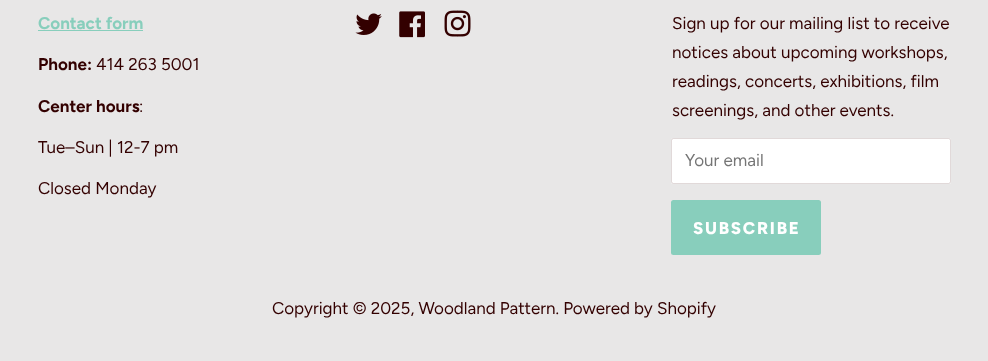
<!DOCTYPE html>
<meta charset="utf-8">
<style>body { margin: 0 } canvas { display: block }</style>
<canvas id="canvas" width="988" height="361"></canvas>
<script type="module">
  const canvas = document.getElementById("canvas");
  const g = canvas.getContext("2d");
  g.miterLimit = 4;
  g.fontKerning = "normal";
  function drawText(s, x, y, [font, color]) {
    g.font = font;
    g.fillStyle = color;
    g.fillText(s, x, y);
  }
  function fillBox(x, y, w, h, color) {
    g.fillStyle = color;
    g.fillRect(x, y, w, h);
  }
  function fillRounded(x, y, w, h, r, color) {
    g.fillStyle = color;
    g.beginPath();
    g.roundRect(x, y, w, h, r);
    g.fill();
  }
  async function drawPicture(src, x, y, w, h) {
    const img = new Image();
    img.src = src;
    await img.decode();
    g.drawImage(img, x, y, w, h);
  }

  const s1 = ["bold 17px Figtree", "#88CEBC"];
  const s2 = ["bold 17px Figtree", "#330000"];
  const s3 = ["17px Figtree", "#330000"];
  const s4 = ["17px Figtree", "#757575"];
  const s5 = ["800 17px Figtree", "#FFFFFF"];

  fillBox(0, 0, 988, 361, "#E8E7E7");
  drawText("Contact form", 38, 29, s1);
  fillBox(38, 30, 105, 1, "#88CEBC");
  drawText("Phone:", 38, 70, s2);
  drawText("414 263 5001", 96, 70, s3);
  drawText("Center hours", 38, 112, s2);
  drawText(":", 139, 112, s3);
  drawText("Tue–Sun | 12-7 pm", 38, 153, s3);
  drawText("Closed Monday", 38, 194, s3);
  await drawPicture("pic1.png", 355, 13, 27, 22);
  await drawPicture("pic2.png", 399, 11, 26, 27);
  await drawPicture("pic3.png", 444, 10, 27, 27);
  drawText("Sign up for our mailing list to receive", 672, 29, s3);
  drawText("notices about upcoming workshops,", 672, 58, s3);
  drawText("readings, concerts, exhibitions, film", 672, 87, s3);
  drawText("screenings, and other events.", 672, 116, s3);
  fillRounded(671, 138, 280, 46, 2.5, "#FFFFFF");
  g.beginPath();
  g.roundRect(671.5, 138.5, 279, 45, 2);
  g.strokeStyle = "rgba(51, 0, 0, 0.15)";
  g.stroke();
  drawText("Your email", 685, 166, s4);
  fillRounded(671, 200, 150, 55, 2.5, "#88CEBC");
  g.letterSpacing = "1.75px";
  drawText("SUBSCRIBE", 693, 234, s5);
  g.letterSpacing = "0px";
  drawText("Copyright © 2025, Woodland Pattern. Powered by Shopify", 272, 314, s3);
</script>
